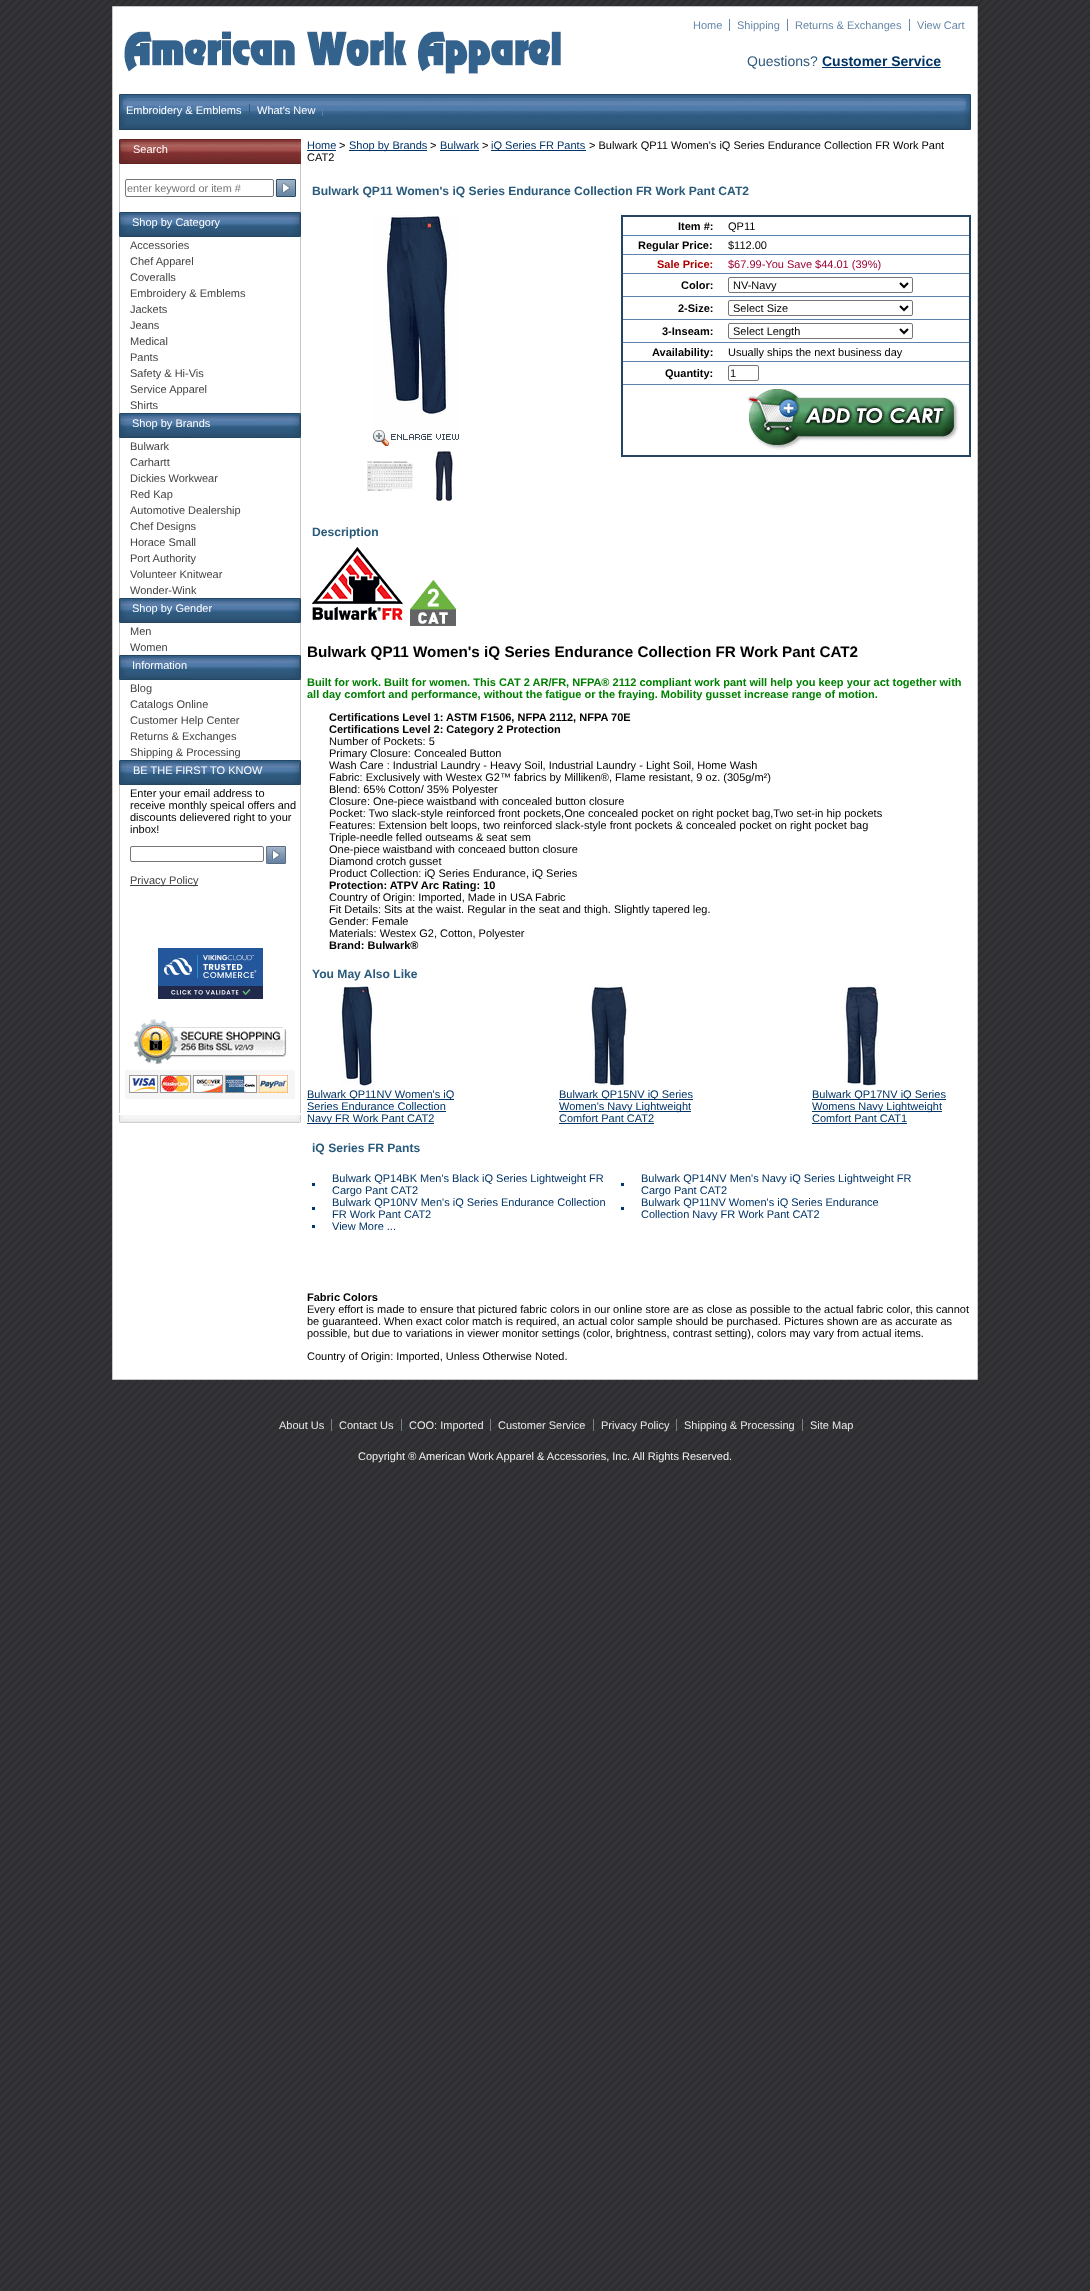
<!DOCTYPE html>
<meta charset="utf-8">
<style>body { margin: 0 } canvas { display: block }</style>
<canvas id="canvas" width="1090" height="2291"></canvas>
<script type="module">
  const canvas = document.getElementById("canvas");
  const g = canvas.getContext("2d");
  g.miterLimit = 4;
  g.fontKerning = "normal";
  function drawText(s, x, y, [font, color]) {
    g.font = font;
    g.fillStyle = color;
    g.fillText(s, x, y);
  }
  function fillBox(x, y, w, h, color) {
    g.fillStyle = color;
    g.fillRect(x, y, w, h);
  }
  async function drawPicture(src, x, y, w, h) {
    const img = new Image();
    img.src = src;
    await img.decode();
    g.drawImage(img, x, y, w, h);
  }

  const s1 = ["11px Liberation Sans", "#6687A9"];
  const s2 = ["14px Liberation Sans", "#2F597D"];
  const s3 = ["bold 14px Liberation Sans", "#003366"];
  const s4 = ["11px Liberation Sans", "#FFFFFF"];
  const s5 = ["10.9px Liberation Sans", "#757575"];
  const s6 = ["11px Liberation Sans", "#424242"];
  const s7 = ["11px Liberation Sans", "#000000"];
  const s8 = ["11px Liberation Sans", "#003366"];
  const s9 = ["bold 12.1px Liberation Sans", "#295A7B"];
  const s10 = ["bold 11px Liberation Sans", "#000000"];
  const s11 = ["bold 11px Liberation Sans", "#AE0000"];
  const s12 = ["11px Liberation Sans", "#9C0039"];
  const s13 = ["bold 15.25px Liberation Sans", "#000000"];
  const s14 = ["bold 11px Liberation Sans", "#008000"];
  const s15 = ["11px Liberation Sans", "#E7EAEA"];
  const s16 = ["11px Liberation Sans", "#F2F2F2"];

  fillBox(0, 0, 1090, 2291, "#FFFFFF");
  await drawPicture("pic1.png", 0, 0, 1090, 2291);
  g.beginPath();
  g.rect(112.5, 6.5, 865, 1373);
  g.fill();
  g.strokeStyle = "#C6C6C6";
  g.stroke();
  drawText("Home", 693, 29, s1);
  fillBox(729, 19, 1, 12, "#6687A9");
  drawText("Shipping", 737, 29, s1);
  fillBox(787, 19, 1, 12, "#6687A9");
  drawText("Returns & Exchanges", 795, 29, s1);
  fillBox(909, 19, 1, 12, "#6687A9");
  drawText("View Cart", 917, 29, s1);
  await drawPicture("pic2.png", 124, 31, 437, 43);
  drawText("Questions?", 747, 66, s2);
  drawText("Customer Service", 822, 66, s3);
  fillBox(822, 67, 119, 1, "#003366");
  await drawPicture("pic3.png", 119, 94, 852, 36);
  await drawPicture("pic4.png", 119, 94, 8, 33);
  drawText("Embroidery & Emblems", 126, 114, s4);
  drawText("What's New", 257, 114, s4);
  fillBox(322, 104, 1, 12, "#5A7BA4");
  fillBox(249, 104, 1, 12, "#345678");
  await drawPicture("pic5.png", 132, 139, 169, 25);
  await drawPicture("pic6.png", 119, 139, 13, 25);
  drawText("Search", 133, 153, s4);
  fillBox(300, 164, 1, 48, "#C6C6C6");
  fillBox(119, 164, 1, 48, "#C6C6C6");
  g.beginPath();
  g.roundRect(125.5, 179.5, 148, 17, 1.5);
  g.strokeStyle = "#767676";
  g.stroke();
  drawText("enter keyword or item #", 127, 192, s5);
  await drawPicture("pic7.png", 275, 179, 21, 18);
  await drawPicture("pic8.png", 127, 212, 174, 25);
  await drawPicture("pic9.png", 119, 212, 8, 25);
  drawText("Shop by Category", 132, 226, s4);
  fillBox(300, 237, 1, 176, "#C6C6C6");
  fillBox(119, 237, 1, 176, "#C6C6C6");
  drawText("Accessories", 130, 249, s6);
  drawText("Chef Apparel", 130, 265, s6);
  drawText("Coveralls", 130, 281, s6);
  drawText("Embroidery & Emblems", 130, 297, s6);
  drawText("Jackets", 130, 313, s6);
  drawText("Jeans", 130, 329, s6);
  drawText("Medical", 130, 345, s6);
  drawText("Pants", 130, 361, s6);
  drawText("Safety & Hi-Vis", 130, 377, s6);
  drawText("Service Apparel", 130, 393, s6);
  drawText("Shirts", 130, 409, s6);
  await drawPicture("pic8.png", 127, 413, 174, 25);
  await drawPicture("pic9.png", 119, 413, 8, 25);
  drawText("Shop by Brands", 132, 427, s4);
  fillBox(300, 438, 1, 160, "#C6C6C6");
  fillBox(119, 438, 1, 160, "#C6C6C6");
  drawText("Bulwark", 130, 450, s6);
  drawText("Carhartt", 130, 466, s6);
  drawText("Dickies Workwear", 130, 482, s6);
  drawText("Red Kap", 130, 498, s6);
  drawText("Automotive Dealership", 130, 514, s6);
  drawText("Chef Designs", 130, 530, s6);
  drawText("Horace Small", 130, 546, s6);
  drawText("Port Authority", 130, 562, s6);
  drawText("Volunteer Knitwear", 130, 578, s6);
  drawText("Wonder-Wink", 130, 594, s6);
  await drawPicture("pic8.png", 127, 598, 174, 25);
  await drawPicture("pic9.png", 119, 598, 8, 25);
  drawText("Shop by Gender", 132, 612, s4);
  fillBox(300, 623, 1, 32, "#C6C6C6");
  fillBox(119, 623, 1, 32, "#C6C6C6");
  drawText("Men", 130, 635, s6);
  drawText("Women", 130, 651, s6);
  await drawPicture("pic8.png", 127, 655, 174, 25);
  await drawPicture("pic9.png", 119, 655, 8, 25);
  drawText("Information", 132, 669, s4);
  fillBox(300, 680, 1, 80, "#C6C6C6");
  fillBox(119, 680, 1, 80, "#C6C6C6");
  drawText("Blog", 130, 692, s6);
  drawText("Catalogs Online", 130, 708, s6);
  drawText("Customer Help Center", 130, 724, s6);
  drawText("Returns & Exchanges", 130, 740, s6);
  drawText("Shipping & Processing", 130, 756, s6);
  await drawPicture("pic8.png", 127, 760, 174, 25);
  await drawPicture("pic9.png", 119, 760, 8, 25);
  drawText("BE THE FIRST TO KNOW", 133, 774, s4);
  fillBox(300, 785, 1, 328, "#C6C6C6");
  fillBox(119, 785, 1, 328, "#C6C6C6");
  drawText("Enter your email address to", 130, 797, s7);
  drawText("receive monthly speical offers and", 130, 809, s7);
  drawText("discounts delievered right to your", 130, 821, s7);
  drawText("inbox!", 130, 833, s7);
  g.beginPath();
  g.roundRect(130.5, 846.5, 133, 15, 1.5);
  g.stroke();
  await drawPicture("pic10.png", 266, 846, 20, 18);
  fillBox(130, 885, 68, 1, "#424242");
  drawText("Privacy Policy", 130, 884, s6);
  await drawPicture("pic11.png", 158, 948, 105, 51);
  await drawPicture("pic12.png", 133, 1019, 154, 46);
  await drawPicture("pic13.png", 125, 1070, 170, 29);
  await drawPicture("pic14.png", 119, 1115, 182, 8);
  drawText("Home", 307, 149, s8);
  fillBox(307, 150, 29, 1, "#003366");
  drawText(">", 339, 149, s7);
  fillBox(349, 150, 78, 1, "#003366");
  drawText("Shop by Brands", 349, 149, s8);
  drawText(">", 430, 149, s7);
  drawText("Bulwark", 440, 149, s8);
  fillBox(440, 150, 39, 1, "#003366");
  drawText(">", 482, 149, s7);
  fillBox(491, 150, 95, 1, "#003366");
  drawText("iQ Series FR Pants", 491, 149, s8);
  drawText("> Bulwark QP11 Women's iQ Series Endurance Collection FR Work Pant", 589, 149, s7);
  drawText("CAT2", 307, 161, s7);
  drawText("Bulwark QP11 Women's iQ Series Endurance Collection FR Work Pant CAT2", 312, 195, s9);
  await drawPicture("pic15.png", 373, 215, 86, 231);
  await drawPicture("pic16.png", 367, 461, 46, 30);
  await drawPicture("pic17.png", 435, 451, 18, 50);
  fillBox(621, 215, 350, 2, "#244664");
  fillBox(622, 235, 349, 1, "#5E82AE");
  fillBox(622, 254, 349, 1, "#5E82AE");
  fillBox(622, 273, 349, 1, "#5E82AE");
  fillBox(622, 296, 349, 1, "#5E82AE");
  fillBox(622, 319, 349, 1, "#5E82AE");
  fillBox(622, 342, 349, 1, "#5E82AE");
  fillBox(622, 361, 349, 1, "#5E82AE");
  fillBox(622, 384, 349, 1, "#5E82AE");
  fillBox(969, 215, 2, 242, "#244664");
  fillBox(621, 455, 350, 2, "#244664");
  fillBox(621, 215, 2, 242, "#244664");
  drawText("Item #:", 678, 230, s10);
  drawText("QP11", 728, 230, s7);
  drawText("Regular Price:", 638, 249, s10);
  drawText("$112.00", 728, 249, s7);
  drawText("Sale Price:", 657, 268, s11);
  drawText("$67.99-You Save $44.01 (39%)", 728, 268, s12);
  drawText("Color:", 681, 289, s10);
  g.beginPath();
  g.roundRect(728.5, 277.5, 184, 15, 1.5);
  g.stroke();
  g.beginPath();
  g.moveTo(900, 283);
  g.lineTo(904, 287);
  g.lineTo(908, 283);
  g.strokeStyle = "#000000";
  g.lineWidth = 2;
  g.stroke();
  drawText("NV-Navy", 733, 289, s7);
  drawText("2-Size:", 678, 312, s10);
  g.beginPath();
  g.roundRect(728.5, 300.5, 184, 15, 1.5);
  g.strokeStyle = "#767676";
  g.lineWidth = 1;
  g.stroke();
  g.beginPath();
  g.moveTo(900, 306);
  g.lineTo(904, 310);
  g.lineTo(908, 306);
  g.strokeStyle = "#000000";
  g.lineWidth = 2;
  g.stroke();
  drawText("Select Size", 733, 312, s7);
  drawText("3-Inseam:", 662, 335, s10);
  g.beginPath();
  g.roundRect(728.5, 323.5, 184, 15, 1.5);
  g.strokeStyle = "#767676";
  g.lineWidth = 1;
  g.stroke();
  g.beginPath();
  g.moveTo(900, 329);
  g.lineTo(904, 333);
  g.lineTo(908, 329);
  g.strokeStyle = "#000000";
  g.lineWidth = 2;
  g.stroke();
  drawText("Select Length", 733, 335, s7);
  drawText("Availability:", 652, 356, s10);
  drawText("Usually ships the next business day", 728, 356, s7);
  drawText("Quantity:", 665, 377, s10);
  g.beginPath();
  g.roundRect(728.5, 365.5, 30, 15, 1.5);
  g.strokeStyle = "#767676";
  g.lineWidth = 1;
  g.stroke();
  drawText("1", 730, 377, s7);
  await drawPicture("pic18.png", 747, 388, 212, 62);
  drawText("Description", 312, 536, s9);
  await drawPicture("pic19.png", 311, 547, 93, 73);
  await drawPicture("pic20.png", 410, 580, 46, 46);
  drawText("Bulwark QP11 Women's iQ Series Endurance Collection FR Work Pant CAT2", 307, 657, s13);
  drawText("Built for work. Built for women. This CAT 2 AR/FR, NFPA® 2112 compliant work pant will help you keep your act together with", 307, 686, s14);
  drawText("all day comfort and performance, without the fatigue or the fraying. Mobility gusset increase range of motion.", 307, 698, s14);
  drawText("Certifications Level 1: ASTM F1506, NFPA 2112, NFPA 70E", 329, 721, s10);
  drawText("Certifications Level 2: Category 2 Protection", 329, 733, s10);
  drawText("Number of Pockets: 5", 329, 745, s7);
  drawText("Primary Closure: Concealed Button", 329, 757, s7);
  drawText("Wash Care : Industrial Laundry - Heavy Soil, Industrial Laundry - Light Soil, Home Wash", 329, 769, s7);
  drawText("Fabric: Exclusively with Westex G2™ fabrics by Milliken®, Flame resistant, 9 oz. (305g/m²)", 329, 781, s7);
  drawText("Blend: 65% Cotton/ 35% Polyester", 329, 793, s7);
  drawText("Closure: One-piece waistband with concealed button closure", 329, 805, s7);
  drawText("Pocket: Two slack-style reinforced front pockets,One concealed pocket on right pocket bag,Two set-in hip pockets", 329, 817, s7);
  drawText("Features: Extension belt loops, two reinforced slack-style front pockets & concealed pocket on right pocket bag", 329, 829, s7);
  drawText("Triple-needle felled outseams & seat sem", 329, 841, s7);
  drawText("One-piece waistband with conceaed button closure", 329, 853, s7);
  drawText("Diamond crotch gusset", 329, 865, s7);
  drawText("Product Collection: iQ Series Endurance, iQ Series", 329, 877, s7);
  drawText("Protection: ATPV Arc Rating: 10", 329, 889, s10);
  drawText("Country of Origin: Imported, Made in USA Fabric", 329, 901, s7);
  drawText("Fit Details: Sits at the waist. Regular in the seat and thigh. Slightly tapered leg.", 329, 913, s7);
  drawText("Gender: Female", 329, 925, s7);
  drawText("Materials: Westex G2, Cotton, Polyester", 329, 937, s7);
  drawText("Brand: Bulwark®", 329, 949, s10);
  drawText("You May Also Like", 312, 978, s9);
  await drawPicture("pic21.png", 340, 986, 34, 100);
  fillBox(307, 1099, 147, 1, "#003366");
  drawText("Bulwark QP11NV Women's iQ", 307, 1098, s8);
  drawText("Series Endurance Collection", 307, 1110, s8);
  fillBox(307, 1111, 139, 1, "#003366");
  fillBox(307, 1123, 127, 1, "#003366");
  drawText("Navy FR Work Pant CAT2", 307, 1122, s8);
  await drawPicture("pic22.png", 590, 986, 38, 100);
  fillBox(559, 1099, 134, 1, "#003366");
  drawText("Bulwark QP15NV iQ Series", 559, 1098, s8);
  fillBox(559, 1111, 132, 1, "#003366");
  drawText("Women's Navy Lightweight", 559, 1110, s8);
  drawText("Comfort Pant CAT2", 559, 1122, s8);
  fillBox(559, 1123, 95, 1, "#003366");
  await drawPicture("pic23.png", 844, 986, 35, 100);
  fillBox(812, 1099, 134, 1, "#003366");
  drawText("Bulwark QP17NV iQ Series", 812, 1098, s8);
  fillBox(812, 1111, 130, 1, "#003366");
  drawText("Womens Navy Lightweight", 812, 1110, s8);
  drawText("Comfort Pant CAT1", 812, 1122, s8);
  fillBox(812, 1123, 95, 1, "#003366");
  drawText("iQ Series FR Pants", 312, 1152, s9);
  fillBox(312, 1183, 3, 3, "#01386E");
  drawText("Bulwark QP14BK Men's Black iQ Series Lightweight FR", 332, 1182, s8);
  drawText("Cargo Pant CAT2", 332, 1194, s8);
  fillBox(621, 1183, 3, 3, "#01386E");
  drawText("Bulwark QP14NV Men's Navy iQ Series Lightweight FR", 641, 1182, s8);
  drawText("Cargo Pant CAT2", 641, 1194, s8);
  fillBox(312, 1207, 3, 3, "#01386E");
  drawText("Bulwark QP10NV Men's iQ Series Endurance Collection", 332, 1206, s8);
  drawText("FR Work Pant CAT2", 332, 1218, s8);
  fillBox(621, 1207, 3, 3, "#01386E");
  drawText("Bulwark QP11NV Women's iQ Series Endurance", 641, 1206, s8);
  drawText("Collection Navy FR Work Pant CAT2", 641, 1218, s8);
  fillBox(312, 1225, 3, 3, "#01386E");
  drawText("View More ...", 332, 1230, s8);
  drawText("Fabric Colors", 307, 1301, s10);
  drawText("Every effort is made to ensure that pictured fabric colors in our online store are as close as possible to the actual fabric color, this cannot", 307, 1313, s7);
  drawText("be guaranteed. When exact color match is required, an actual color sample should be purchased. Pictures shown are as accurate as", 307, 1325, s7);
  drawText("possible, but due to variations in viewer monitor settings (color, brightness, contrast setting), colors may vary from actual items.", 307, 1337, s7);
  drawText("Country of Origin: Imported, Unless Otherwise Noted.", 307, 1360, s7);
  drawText("About Us", 279, 1429, s15);
  fillBox(331, 1419, 1, 12, "#758483");
  drawText("Contact Us", 339, 1429, s15);
  fillBox(401, 1419, 1, 12, "#758483");
  drawText("COO: Imported", 409, 1429, s15);
  fillBox(490, 1419, 1, 12, "#758483");
  drawText("Customer Service", 498, 1429, s15);
  fillBox(593, 1419, 1, 12, "#758483");
  drawText("Privacy Policy", 601, 1429, s15);
  fillBox(676, 1419, 1, 12, "#758483");
  drawText("Shipping & Processing", 684, 1429, s15);
  fillBox(802, 1419, 1, 12, "#758483");
  drawText("Site Map", 810, 1429, s15);
  drawText("Copyright ® American Work Apparel & Accessories, Inc. All Rights Reserved.", 358, 1460, s16);
</script>
